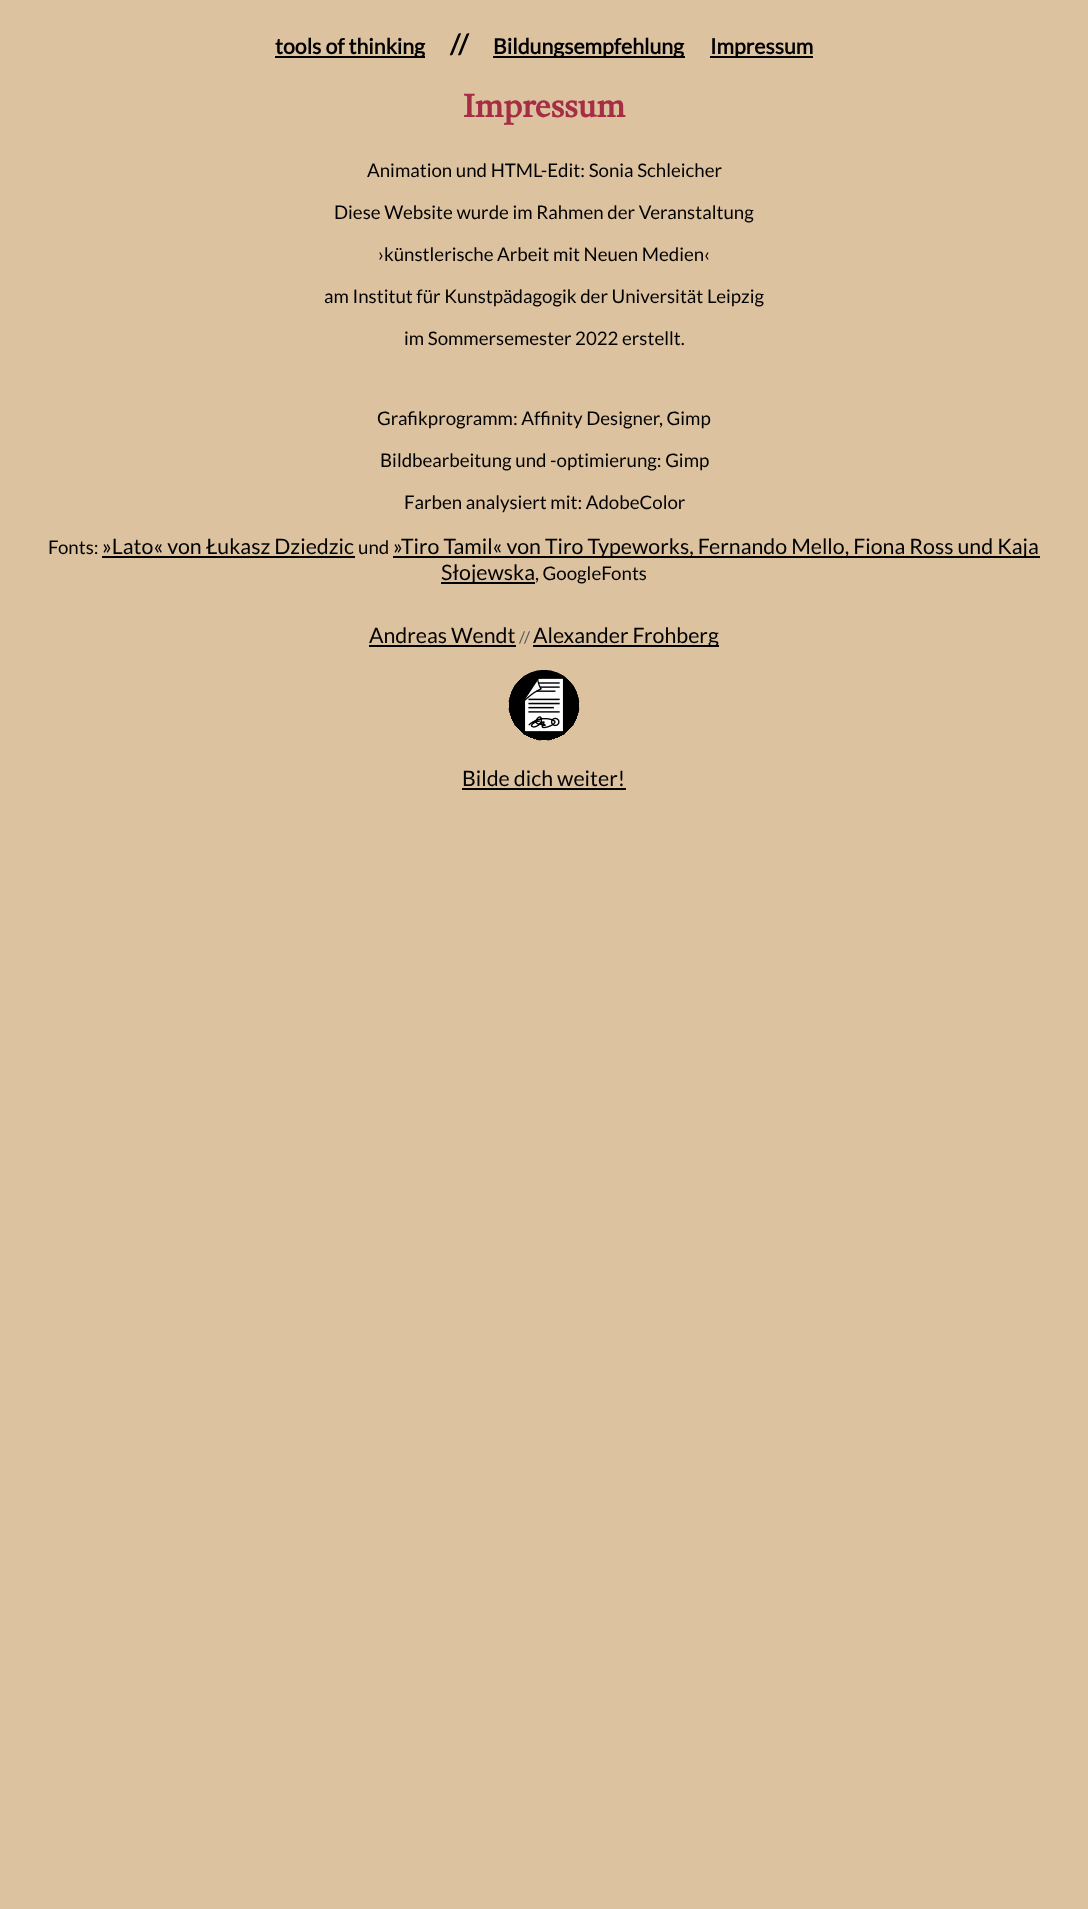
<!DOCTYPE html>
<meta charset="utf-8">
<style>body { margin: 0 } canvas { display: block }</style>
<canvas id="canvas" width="1088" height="1909"></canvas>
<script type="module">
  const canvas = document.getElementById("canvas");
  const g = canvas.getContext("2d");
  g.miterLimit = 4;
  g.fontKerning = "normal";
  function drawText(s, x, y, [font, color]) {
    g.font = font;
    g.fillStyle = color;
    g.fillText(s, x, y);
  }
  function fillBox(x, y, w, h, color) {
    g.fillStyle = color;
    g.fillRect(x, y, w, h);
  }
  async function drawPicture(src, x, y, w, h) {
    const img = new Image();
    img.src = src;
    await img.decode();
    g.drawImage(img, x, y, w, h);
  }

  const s1 = ["bold 21.3px Lato", "#000000"];
  const s2 = ["bold 27px Lato", "#000000"];
  const s3 = ["bold 32px Tiro Tamil", "#A62E44"];
  const s4 = ["18.7px Lato", "#000000"];
  const s5 = ["21.3px Lato", "#000000"];
  const s6 = ["16px Lato", "#545454"];

  fillBox(0, 0, 1088, 1909, "#DDC2A0");
  fillBox(275, 56, 150, 2, "#000000");
  drawText("tools of thinking", 275, 54, s1);
  drawText("//", 450, 54, s2);
  fillBox(493, 56, 192, 2, "#000000");
  drawText("Bildungsempfehlung", 493, 54, s1);
  fillBox(710, 56, 103, 2, "#000000");
  drawText("Impressum", 710, 54, s1);
  drawText("Impressum", 463, 117, s3);
  drawText("Animation und HTML-Edit: Sonia Schleicher", 367, 177, s4);
  drawText("Diese Website wurde im Rahmen der Veranstaltung", 334, 219, s4);
  drawText("›künstlerische Arbeit mit Neuen Medien‹", 378, 261, s4);
  drawText("am Institut für Kunstpädagogik der Universität Leipzig", 324, 303, s4);
  drawText("im Sommersemester 2022 erstellt.", 404, 345, s4);
  drawText("Grafikprogramm: Affinity Designer, Gimp", 377, 425, s4);
  drawText("Bildbearbeitung und -optimierung: Gimp", 380, 467, s4);
  drawText("Farben analysiert mit: AdobeColor", 404, 509, s4);
  drawText("Fonts:", 48, 554, s4);
  drawText("»Lato« von Łukasz Dziedzic", 102, 554, s5);
  fillBox(102, 556, 253, 2, "#000000");
  drawText("und", 358, 554, s4);
  fillBox(393, 556, 647, 2, "#000000");
  drawText("»Tiro Tamil« von Tiro Typeworks, Fernando Mello, Fiona Ross und Kaja", 393, 554, s5);
  fillBox(441, 582, 94, 2, "#000000");
  drawText("Słojewska", 441, 580, s5);
  drawText(", GoogleFonts", 535, 580, s4);
  drawText("Andreas Wendt", 369, 643, s5);
  fillBox(369, 645, 147, 2, "#000000");
  drawText("//", 519, 643, s6);
  fillBox(533, 645, 186, 2, "#000000");
  drawText("Alexander Frohberg", 533, 643, s5);
  await drawPicture("pic1.png", 508, 670, 72, 71);
  drawText("Bilde dich weiter!", 462, 786, s5);
  fillBox(462, 788, 164, 2, "#000000");
</script>
